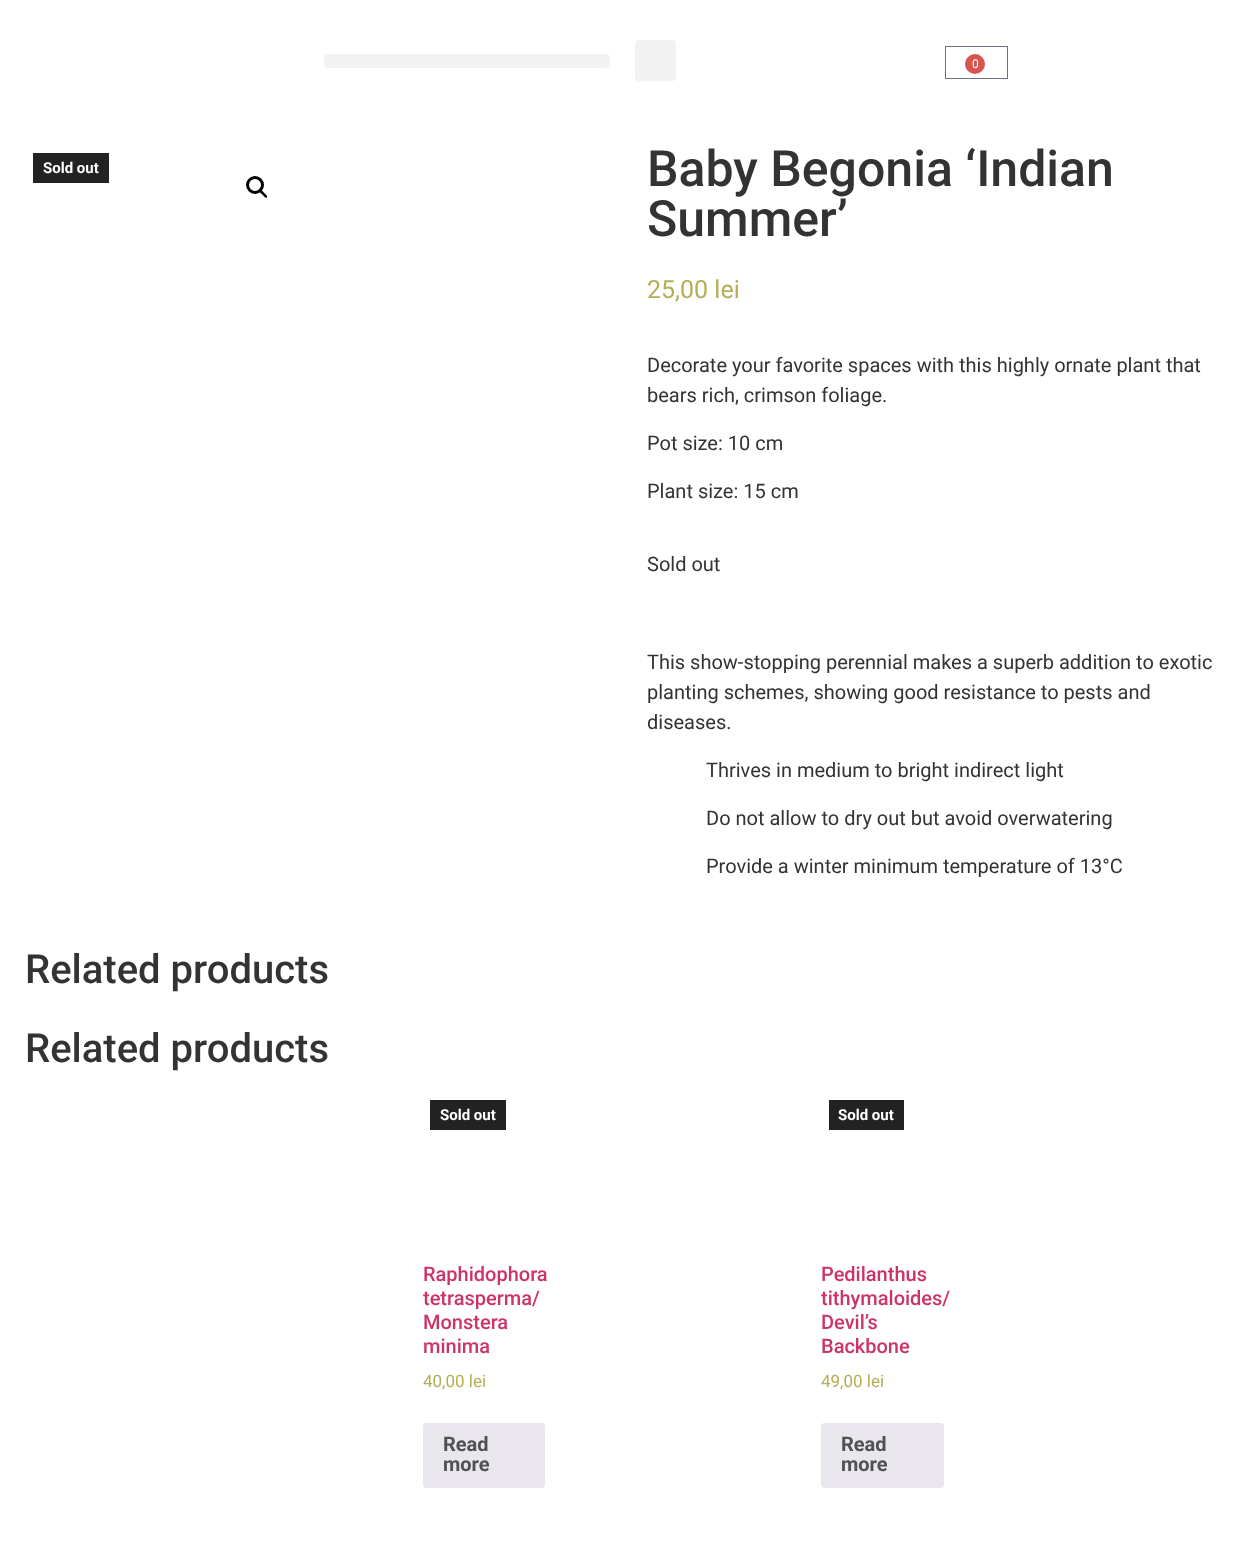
<!DOCTYPE html>
<meta charset="utf-8">
<style>body { margin: 0 } canvas { display: block }</style>
<canvas id="canvas" width="1243" height="1548"></canvas>
<script type="module">
  const canvas = document.getElementById("canvas");
  const g = canvas.getContext("2d");
  g.miterLimit = 4;
  g.fontKerning = "normal";
  function drawText(s, x, y, [font, color]) {
    g.font = font;
    g.fillStyle = color;
    g.fillText(s, x, y);
  }
  function fillBox(x, y, w, h, color) {
    g.fillStyle = color;
    g.fillRect(x, y, w, h);
  }
  function fillRounded(x, y, w, h, r, color) {
    g.fillStyle = color;
    g.beginPath();
    g.roundRect(x, y, w, h, r);
    g.fill();
  }

  const s1 = ["12px Roboto", "#FFFFFF"];
  const s2 = ["bold 15px Roboto", "#FFFFFF"];
  const s3 = ["500 50px Roboto", "#333333"];
  const s4 = ["25px Roboto", "#B3AF54"];
  const s5 = ["20px Roboto", "#333333"];
  const s6 = ["500 40px Roboto", "#333333"];
  const s7 = ["500 20px Roboto", "#CC3366"];
  const s8 = ["17px Roboto", "#B3AF54"];
  const s9 = ["bold 20px Roboto", "#515151"];

  fillBox(0, 0, 1243, 1548, "#FFFFFF");
  fillRounded(324, 54, 286, 14, 4, "#F2F2F2");
  fillRounded(635, 40, 41, 41, 4, "#F2F2F2");
  g.strokeStyle = "#69727D";
  g.strokeRect(945.5, 46.5, 62, 32);
  g.fillStyle = "#D9534F";
  g.beginPath();
  g.arc(975, 64, 10, 0, Math.PI * 2);
  g.fill();
  drawText("0", 972, 68, s1);
  fillBox(33, 153, 76, 30, "#222222");
  drawText("Sold out", 43, 173, s2);
  g.beginPath();
  g.arc(255, 185, 7.5, 0, Math.PI * 2);
  g.strokeStyle = "#000000";
  g.lineWidth = 3;
  g.stroke();
  g.fillStyle = "#000000";
  g.beginPath();
  g.moveTo(259.5, 190);
  g.bezierCurveTo(261, 189, 263.5, 192, 264, 193);
  g.bezierCurveTo(265, 193.5, 268, 196, 267, 197.5);
  g.bezierCurveTo(265.5, 198.5, 263, 195.5, 262.5, 194.5);
  g.bezierCurveTo(261.5, 194, 258.5, 191.5, 259.5, 190);
  g.closePath();
  g.fill();
  drawText("Baby Begonia ‘Indian", 647, 186, s3);
  drawText("Summer’", 647, 236, s3);
  drawText("25,00 lei", 647, 298, s4);
  drawText("Decorate your favorite spaces with this highly ornate plant that", 647, 372, s5);
  drawText("bears rich, crimson foliage.", 647, 402, s5);
  drawText("Pot size: 10 cm", 647, 450, s5);
  drawText("Plant size: 15 cm", 647, 498, s5);
  drawText("Sold out", 647, 571, s5);
  drawText("This show-stopping perennial makes a superb addition to exotic", 647, 669, s5);
  drawText("planting schemes, showing good resistance to pests and", 647, 699, s5);
  drawText("diseases.", 647, 729, s5);
  drawText("Thrives in medium to bright indirect light", 706, 777, s5);
  drawText("Do not allow to dry out but avoid overwatering", 706, 825, s5);
  drawText("Provide a winter minimum temperature of 13°C", 706, 873, s5);
  drawText("Related products", 25, 983, s6);
  drawText("Related products", 25, 1062, s6);
  fillBox(430, 1100, 76, 30, "#222222");
  drawText("Sold out", 440, 1120, s2);
  drawText("Raphidophora", 423, 1281, s7);
  drawText("tetrasperma/", 423, 1305, s7);
  drawText("Monstera", 423, 1329, s7);
  drawText("minima", 423, 1353, s7);
  drawText("40,00 lei", 423, 1387, s8);
  fillRounded(423, 1423, 122, 65, 4, "#E9E6ED");
  drawText("Read", 443, 1451, s9);
  drawText("more", 443, 1471, s9);
  fillBox(829, 1100, 75, 30, "#222222");
  drawText("Sold out", 838, 1120, s2);
  drawText("Pedilanthus", 821, 1281, s7);
  drawText("tithymaloides/", 821, 1305, s7);
  drawText("Devil’s", 821, 1329, s7);
  drawText("Backbone", 821, 1353, s7);
  drawText("49,00 lei", 821, 1387, s8);
  fillRounded(821, 1423, 123, 65, 4, "#E9E6ED");
  drawText("Read", 841, 1451, s9);
  drawText("more", 841, 1471, s9);
</script>
